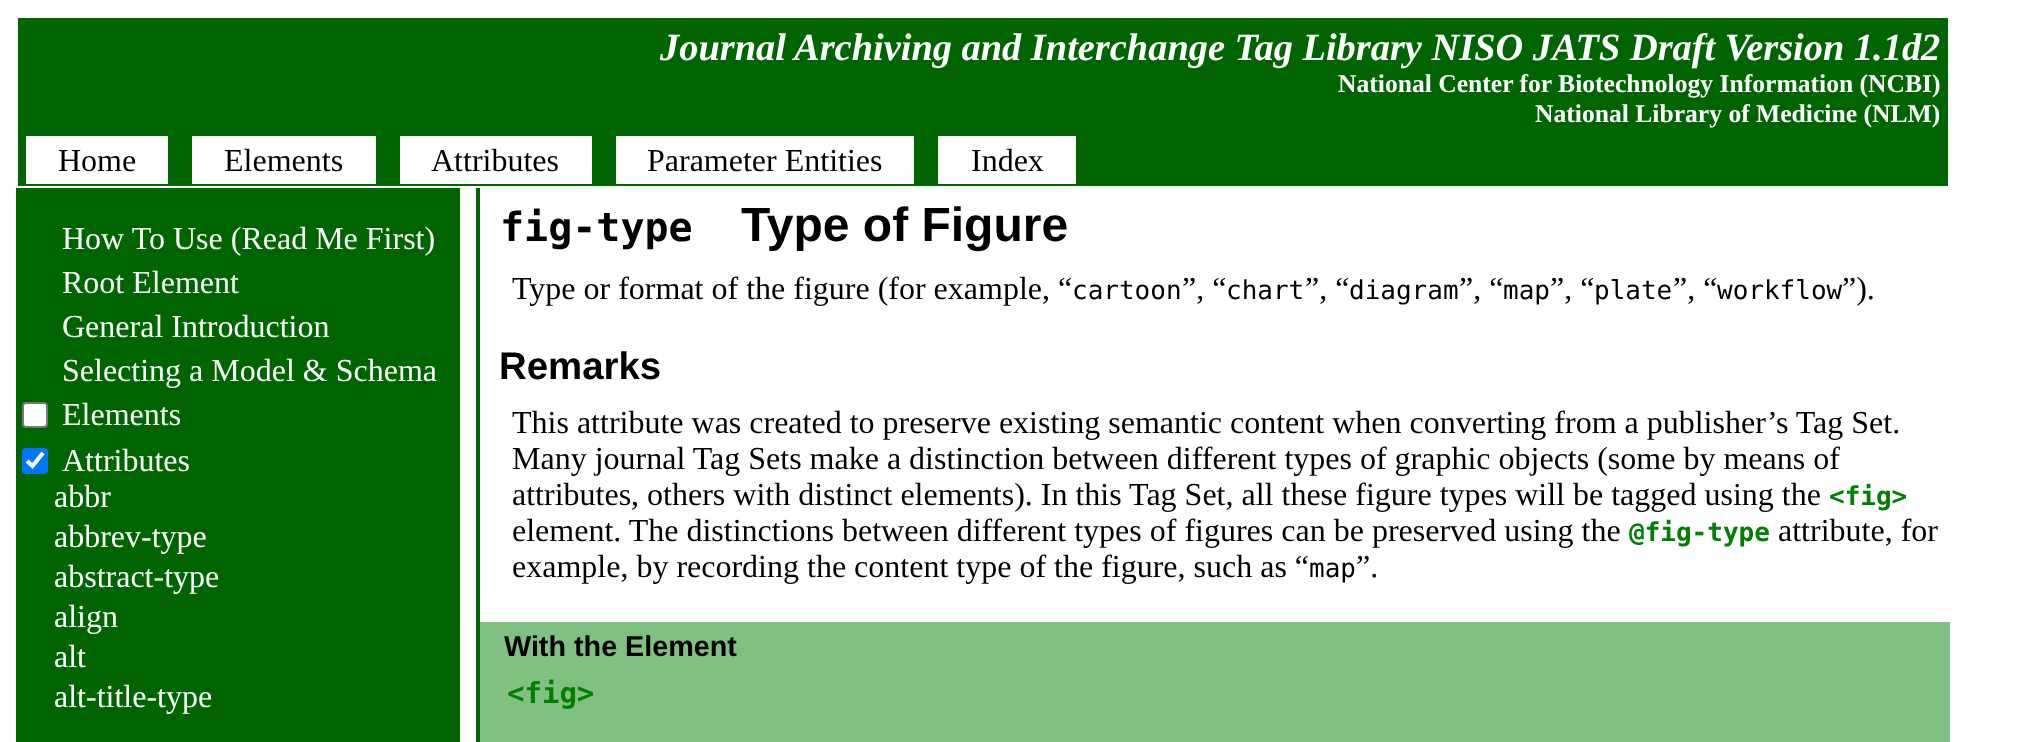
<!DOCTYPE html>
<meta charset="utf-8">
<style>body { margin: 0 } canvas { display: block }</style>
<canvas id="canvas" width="2035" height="742"></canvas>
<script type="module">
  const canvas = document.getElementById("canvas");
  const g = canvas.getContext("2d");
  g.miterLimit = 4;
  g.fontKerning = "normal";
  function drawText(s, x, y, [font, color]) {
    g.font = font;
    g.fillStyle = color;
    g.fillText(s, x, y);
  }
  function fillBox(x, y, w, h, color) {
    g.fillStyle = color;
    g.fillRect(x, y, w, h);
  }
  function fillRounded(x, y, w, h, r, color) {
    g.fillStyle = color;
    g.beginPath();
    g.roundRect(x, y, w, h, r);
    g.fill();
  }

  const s1 = ["italic bold 38.4px Liberation Serif", "#FFFFFF"];
  const s2 = ["bold 25.6px Liberation Serif", "#FFFFFF"];
  const s3 = ["32px Liberation Serif", "#000000"];
  const s4 = ["32px Liberation Serif", "#FFFFFF"];
  const s5 = ["bold 40px DejaVu Sans Mono", "#000000"];
  const s6 = ["bold 48px Liberation Sans", "#000000"];
  const s7 = ["26px DejaVu Sans Mono", "#000000"];
  const s8 = ["bold 38.4px Liberation Sans", "#000000"];
  const s9 = ["bold 26px DejaVu Sans Mono", "#008000"];
  const s10 = ["bold 28.75px Liberation Sans", "#000000"];
  const s11 = ["bold 29px DejaVu Sans Mono", "#008000"];

  fillBox(0, 0, 2035, 742, "#FFFFFF");
  fillBox(18, 18, 1930, 168, "#006400");
  drawText("Journal Archiving and Interchange Tag Library NISO JATS Draft Version 1.1d2", 660, 60, s1);
  drawText("National Center for Biotechnology Information (NCBI)", 1338, 92, s2);
  drawText("National Library of Medicine (NLM)", 1535, 122, s2);
  fillBox(26, 136, 142, 48, "#FFFFFF");
  drawText("Home", 58, 171, s3);
  fillBox(192, 136, 184, 48, "#FFFFFF");
  drawText("Elements", 224, 171, s3);
  fillBox(400, 136, 192, 48, "#FFFFFF");
  drawText("Attributes", 431, 171, s3);
  fillBox(616, 136, 298, 48, "#FFFFFF");
  drawText("Parameter Entities", 647, 171, s3);
  fillBox(938, 136, 138, 48, "#FFFFFF");
  drawText("Index", 971, 171, s3);
  fillBox(16, 188, 444, 554, "#006400");
  drawText("How To Use (Read Me First)", 62, 249, s4);
  drawText("Root Element", 62, 293, s4);
  drawText("General Introduction", 62, 337, s4);
  drawText("Selecting a Model & Schema", 62, 381, s4);
  g.beginPath();
  g.roundRect(23, 403, 24, 24, 3);
  g.fill();
  g.strokeStyle = "#767676";
  g.lineWidth = 2;
  g.stroke();
  drawText("Elements", 62, 425, s4);
  fillRounded(22, 448, 26, 26, 4, "#0075FF");
  g.beginPath();
  g.moveTo(27, 461);
  g.lineTo(32.5, 466);
  g.lineTo(43, 453);
  g.strokeStyle = "#FFFFFF";
  g.lineWidth = 4.2;
  g.stroke();
  drawText("Attributes", 62, 471, s4);
  drawText("abbr", 54, 507, s4);
  drawText("abbrev-type", 54, 547, s4);
  drawText("abstract-type", 54, 587, s4);
  drawText("align", 54, 627, s4);
  drawText("alt", 54, 667, s4);
  drawText("alt-title-type", 54, 707, s4);
  fillBox(476, 188, 4, 554, "#006400");
  drawText("fig-type", 500, 241, s5);
  drawText("Type of Figure", 741, 241, s6);
  drawText("Type or format of the figure (for example, “", 512, 299, s3);
  drawText("cartoon", 1072, 299, s7);
  drawText("”, “", 1182, 299, s3);
  drawText("chart", 1226, 299, s7);
  drawText("”, “", 1305, 299, s3);
  drawText("diagram", 1349, 299, s7);
  drawText("”, “", 1459, 299, s3);
  drawText("map", 1503, 299, s7);
  drawText("”, “", 1550, 299, s3);
  drawText("plate", 1594, 299, s7);
  drawText("”, “", 1673, 299, s3);
  drawText("workflow", 1717, 299, s7);
  drawText("”).", 1842, 299, s3);
  drawText("Remarks", 499, 379, s8);
  drawText("This attribute was created to preserve existing semantic content when converting from a publisher’s Tag Set.", 512, 433, s3);
  drawText("Many journal Tag Sets make a distinction between different types of graphic objects (some by means of", 512, 469, s3);
  drawText("attributes, others with distinct elements). In this Tag Set, all these figure types will be tagged using the", 512, 505, s3);
  drawText("<fig>", 1829, 505, s9);
  drawText("element. The distinctions between different types of figures can be preserved using the", 512, 541, s3);
  drawText("@fig-type", 1629, 541, s9);
  drawText("attribute, for", 1778, 541, s3);
  drawText("example, by recording the content type of the figure, such as “", 512, 577, s3);
  drawText("map", 1309, 577, s7);
  drawText("”.", 1356, 577, s3);
  fillBox(480, 622, 1470, 120, "#80C080");
  drawText("With the Element", 504, 656, s10);
  drawText("<fig>", 507, 703, s11);
</script>
